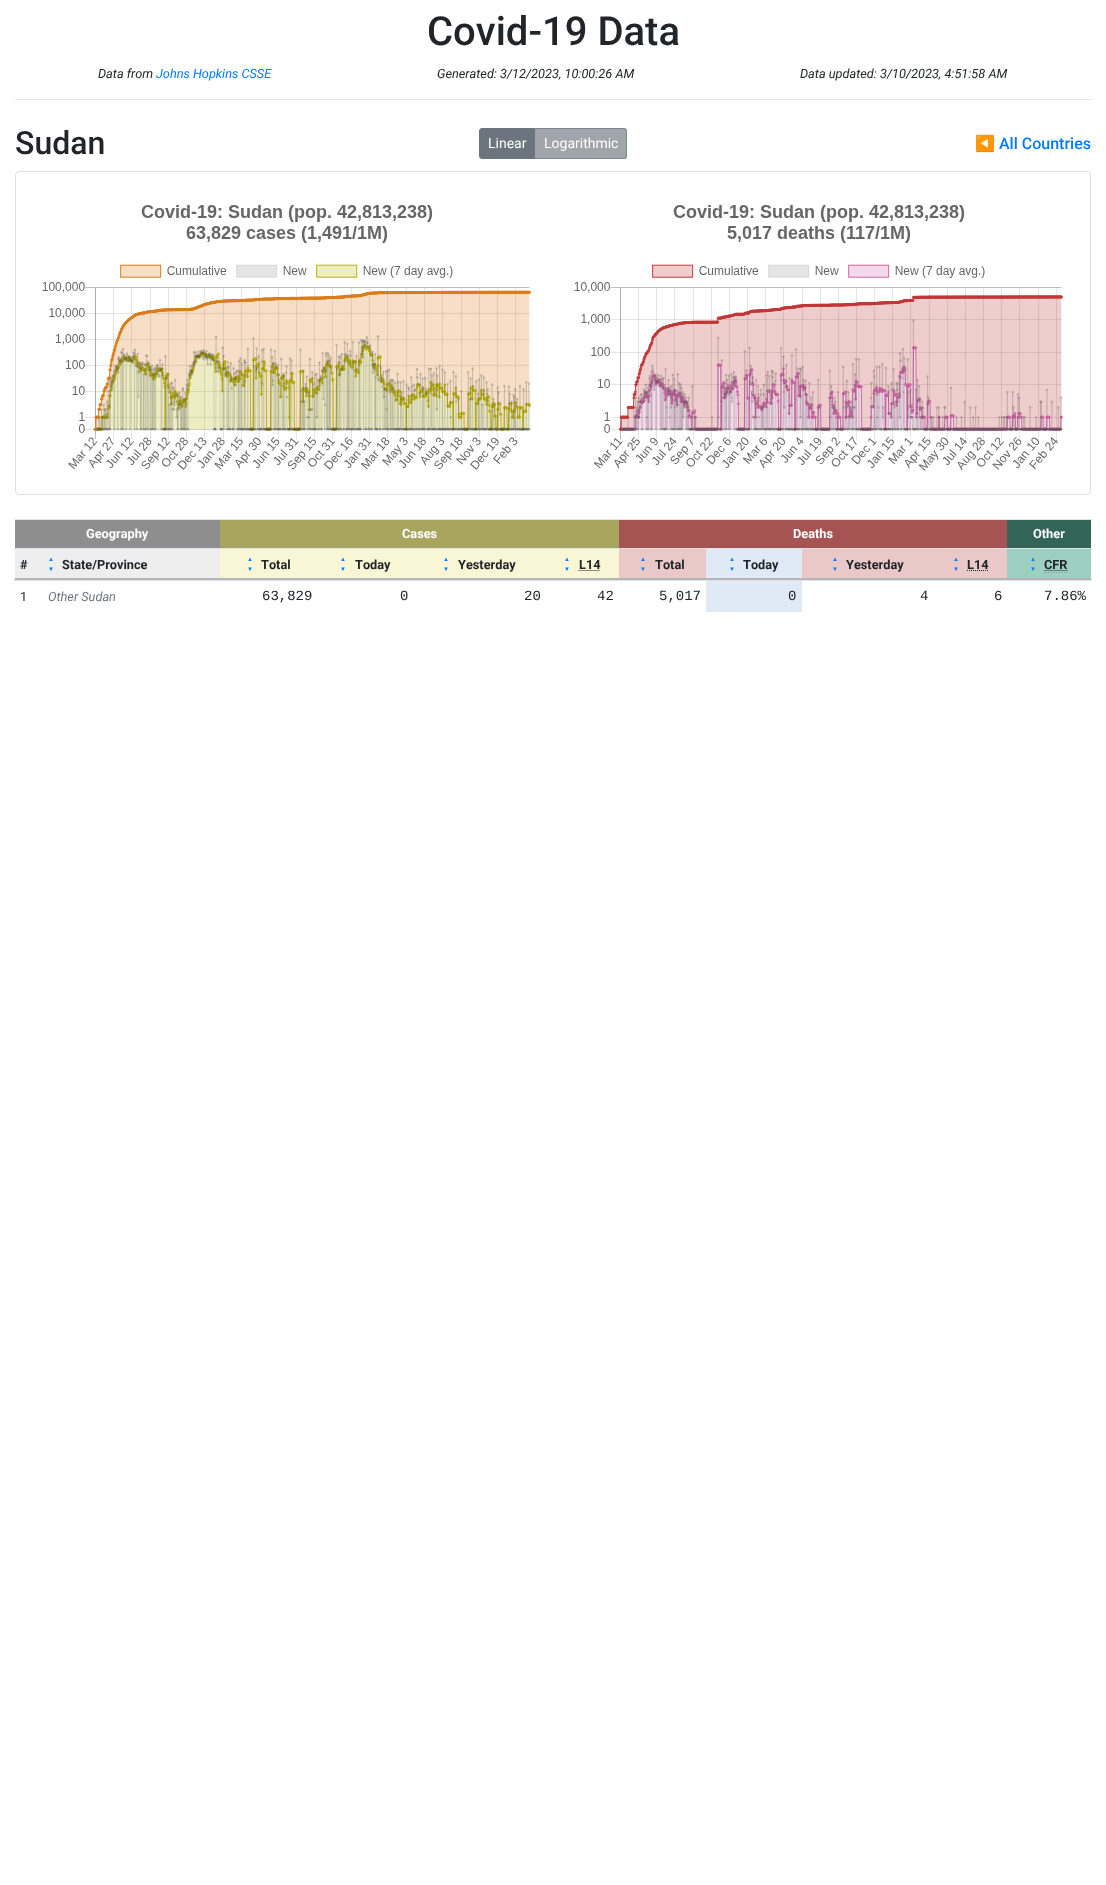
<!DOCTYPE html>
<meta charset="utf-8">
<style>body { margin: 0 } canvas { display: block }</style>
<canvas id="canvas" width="1106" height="1885"></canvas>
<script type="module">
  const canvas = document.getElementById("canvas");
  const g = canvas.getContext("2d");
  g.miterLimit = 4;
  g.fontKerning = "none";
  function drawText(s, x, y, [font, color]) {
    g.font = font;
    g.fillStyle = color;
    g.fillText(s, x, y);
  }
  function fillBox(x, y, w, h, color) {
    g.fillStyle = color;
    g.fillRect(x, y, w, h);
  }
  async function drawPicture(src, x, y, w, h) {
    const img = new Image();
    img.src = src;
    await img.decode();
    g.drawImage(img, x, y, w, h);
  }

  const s1 = ["500 40px Roboto", "#212529"];
  const s2 = ["italic 12.75px Roboto", "#212529"];
  const s3 = ["italic 12.75px Roboto", "#007BFF"];
  const s4 = ["500 32px Roboto", "#212529"];
  const s5 = ["16px Noto Color Emoji", "#007BFF"];
  const s6 = ["500 16px Roboto", "#007BFF"];
  const s7 = ["14px Roboto", "#FFFFFF"];
  const s8 = ["bold 12.75px Roboto", "#FFFFFF"];
  const s9 = ["bold 12.75px Roboto", "#212529"];
  const s10 = ["bold 6px Liberation Sans", "#007BFF"];
  const s11 = ["12.75px Roboto", "#212529"];
  const s12 = ["italic 12.75px Roboto", "#6C757D"];
  const s13 = ["14px Liberation Mono", "#212529"];

  fillBox(0, 0, 1106, 1885, "#FFFFFF");
  drawText("Covid-19 Data", 427, 45, s1);
  drawText("Data from", 98, 78, s2);
  drawText("Johns Hopkins CSSE", 156, 78, s3);
  drawText("Generated: 3/12/2023, 10:00:26 AM", 437, 78, s2);
  drawText("Data updated: 3/10/2023, 4:51:58 AM", 800, 78, s2);
  fillBox(15, 99, 1076, 1, "#E6E6E6");
  drawText("Sudan", 15, 154, s4);
  drawText("◀", 975, 149, s5);
  drawText("All Countries", 999, 149, s6);
  g.fillStyle = "#6C757D";
  g.beginPath();
  g.roundRect(479.5, 128.5, 55, 30, [2.5, 0, 0, 2.5]);
  g.fill();
  g.strokeStyle = "#6C757D";
  g.stroke();
  drawText("Linear", 488, 148, s7);
  g.fillStyle = "rgba(108, 117, 125, 0.65)";
  g.beginPath();
  g.roundRect(534, 128, 93, 31, [0, 3, 3, 0]);
  g.fill();
  g.beginPath();
  g.roundRect(534.5, 128.5, 92, 30, [0, 2.5, 2.5, 0]);
  g.strokeStyle = "rgba(108, 117, 125, 0.65)";
  g.stroke();
  drawText("Logarithmic", 544, 148, s7);
  g.beginPath();
  g.roundRect(15.5, 171.5, 1075, 323, 3.5);
  g.strokeStyle = "#DFDFDF";
  g.stroke();
  await drawPicture("pic1.png", 42, 205, 489, 265);
  await drawPicture("pic2.png", 574, 205, 489, 266);
  fillBox(15, 520, 205, 28, "#8E8E8E");
  fillBox(1006, 548, 86, 2, "#DEE2E6");
  fillBox(219, 548, 789, 1, "#DEE2E6");
  fillBox(14, 548, 207, 2, "#DEE2E6");
  drawText("Geography", 86, 538, s8);
  fillBox(220, 520, 399, 28, "#AAA55E");
  drawText("Cases", 402, 538, s8);
  fillBox(619, 520, 388, 28, "#A65353");
  drawText("Deaths", 793, 538, s8);
  fillBox(1007, 520, 84, 28, "#336556");
  fillBox(15, 519, 1077, 1, "#DEE2E6");
  drawText("Other", 1033, 538, s8);
  fillBox(1006, 579, 86, 2, "#DEE2E6");
  fillBox(42, 580, 966, 1, "#DEE2E6");
  fillBox(14, 579, 30, 2, "#DEE2E6");
  fillBox(15, 549, 205, 29, "#EEEEEE");
  drawText("#", 20, 569, s9);
  fillBox(15, 578, 1076, 2, "#B5B5B5");
  drawText("▲", 48, 561, s10);
  drawText("▼", 48, 571, s10);
  drawText("State/Province", 62, 569, s9);
  fillBox(220, 549, 399, 29, "#F9F6D5");
  drawText("▲", 247, 561, s10);
  drawText("▼", 247, 571, s10);
  drawText("Total", 261, 569, s9);
  drawText("▲", 340, 561, s10);
  drawText("▼", 340, 571, s10);
  drawText("Today", 355, 569, s9);
  drawText("▲", 443, 561, s10);
  drawText("▼", 443, 571, s10);
  drawText("Yesterday", 458, 569, s9);
  drawText("▲", 564, 561, s10);
  drawText("▼", 564, 571, s10);
  drawText("L14", 579, 569, s9);
  g.beginPath();
  g.moveTo(578.5, 570.5);
  g.lineTo(600, 570.5);
  g.strokeStyle = "#212529";
  g.setLineDash([1, 1]);
  g.stroke();
  fillBox(619, 549, 87, 29, "#EAC8C8");
  drawText("▲", 640, 561, s10);
  drawText("▼", 640, 571, s10);
  drawText("Total", 655, 569, s9);
  fillBox(706, 549, 96, 29, "#E0EAF7");
  drawText("▲", 729, 561, s10);
  drawText("▼", 729, 571, s10);
  drawText("Today", 743, 569, s9);
  fillBox(802, 549, 205, 29, "#EAC8C8");
  drawText("▲", 832, 561, s10);
  drawText("▼", 832, 571, s10);
  drawText("Yesterday", 846, 569, s9);
  drawText("▲", 953, 561, s10);
  drawText("▼", 953, 571, s10);
  drawText("L14", 967, 569, s9);
  g.beginPath();
  g.moveTo(967, 570.5);
  g.lineTo(988.5, 570.5);
  g.stroke();
  fillBox(1007, 549, 84, 29, "#9ED0C2");
  drawText("▲", 1030, 561, s10);
  drawText("▼", 1030, 571, s10);
  drawText("CFR", 1044, 569, s9);
  g.beginPath();
  g.moveTo(1044, 572.5);
  g.lineTo(1068, 572.5);
  g.strokeStyle = "#999999";
  g.stroke();
  g.beginPath();
  g.moveTo(1044.5, 570.5);
  g.lineTo(1068, 570.5);
  g.strokeStyle = "#212529";
  g.stroke();
  drawText("1", 20, 601, s11);
  drawText("Other Sudan", 48, 601, s12);
  drawText("63,829", 262, 600, s13);
  drawText("0", 400, 600, s13);
  drawText("20", 524, 600, s13);
  drawText("42", 597, 600, s13);
  drawText("5,017", 659, 600, s13);
  fillBox(706, 581, 96, 31, "#E0EAF7");
  drawText("0", 788, 600, s13);
  drawText("4", 920, 600, s13);
  drawText("6", 994, 600, s13);
  drawText("7.86%", 1044, 600, s13);
</script>
